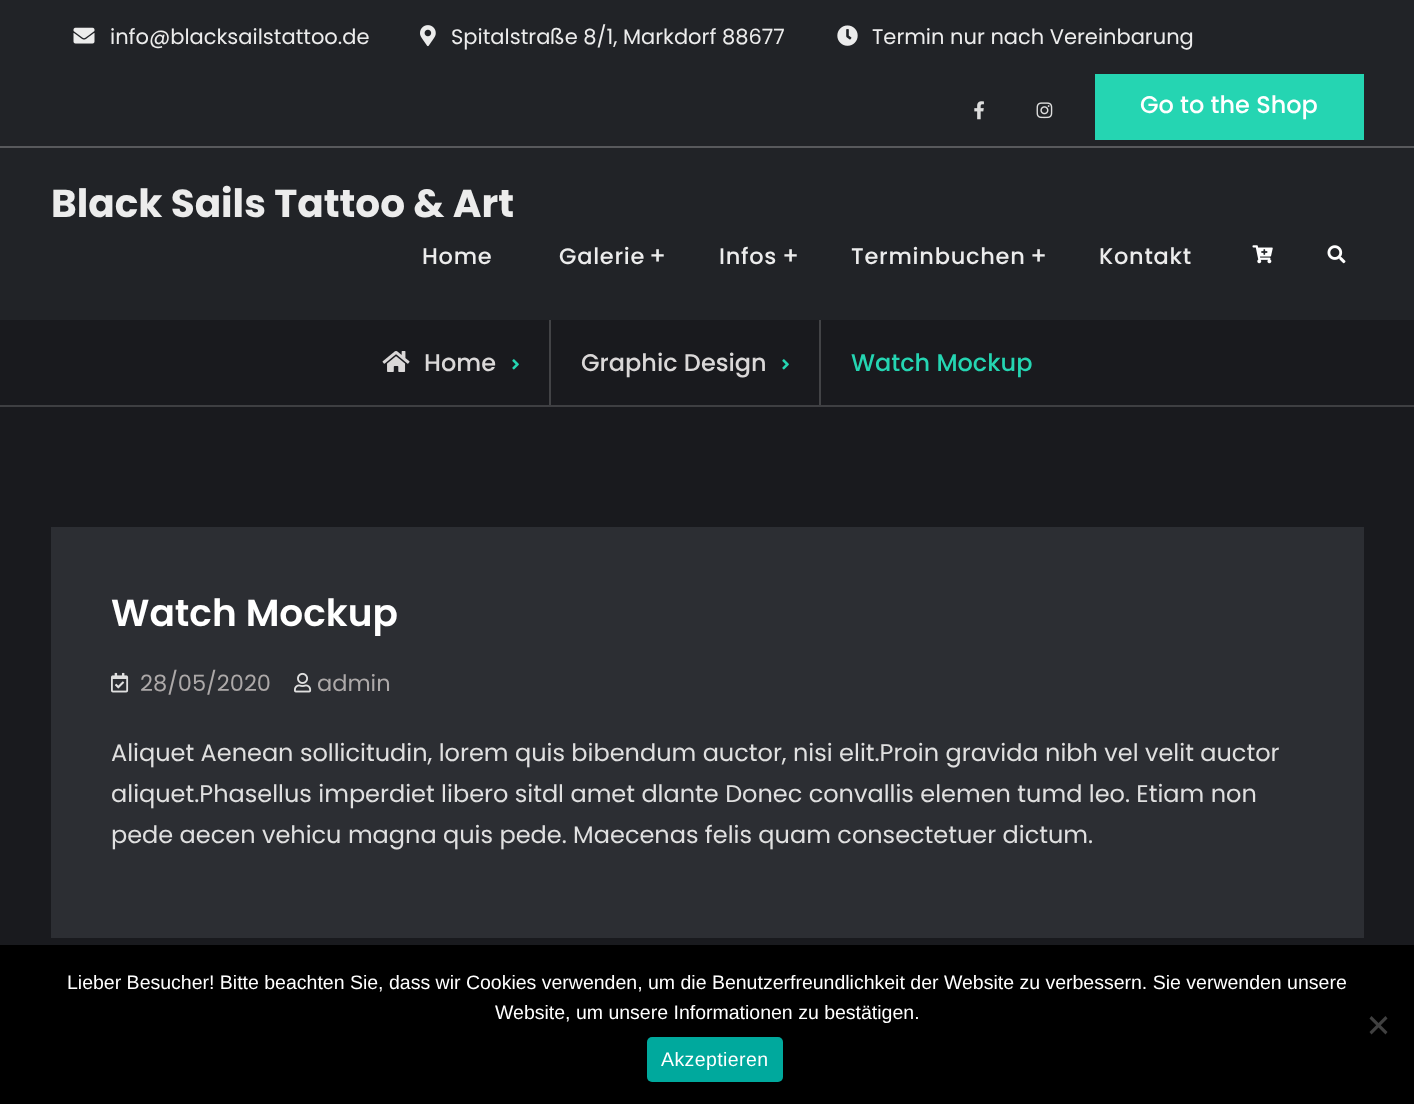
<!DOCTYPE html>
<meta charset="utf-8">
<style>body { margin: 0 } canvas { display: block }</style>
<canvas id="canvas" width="1414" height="1104"></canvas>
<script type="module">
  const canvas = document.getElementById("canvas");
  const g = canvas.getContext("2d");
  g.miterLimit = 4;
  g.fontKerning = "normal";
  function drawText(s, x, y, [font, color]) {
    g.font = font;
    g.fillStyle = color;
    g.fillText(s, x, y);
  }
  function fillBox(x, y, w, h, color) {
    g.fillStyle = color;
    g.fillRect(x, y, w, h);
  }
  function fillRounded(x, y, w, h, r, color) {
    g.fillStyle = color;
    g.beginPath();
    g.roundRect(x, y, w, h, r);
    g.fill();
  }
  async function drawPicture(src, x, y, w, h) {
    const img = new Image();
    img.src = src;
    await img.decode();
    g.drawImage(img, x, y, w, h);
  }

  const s1 = ["21px Poppins", "#ECECEC"];
  const s2 = ["500 24px Poppins", "#FFFFFF"];
  const s3 = ["bold 39px Poppins", "#ECECEC"];
  const s4 = ["500 22.5px Poppins", "#ECECEC"];
  const s5 = ["500 24px Poppins", "#ECECEC"];
  const s6 = ["500 24px Poppins", "#DAD8D8"];
  const s7 = ["500 24px Poppins", "#25D5B2"];
  const s8 = ["600 37.5px Poppins", "#FFFFFF"];
  const s9 = ["22.5px Poppins", "#ADA9A9"];
  const s10 = ["24px Poppins", "#E0E0E0"];
  const s11 = ["19.5px Liberation Sans", "#FFFFFF"];

  fillBox(0, 0, 1414, 1104, "#191A1E");
  fillBox(0, 0, 1414, 146, "#212327");
  fillBox(0, 146, 1414, 2, "#58595C");
  await drawPicture("pic1.png", 73, 27, 22, 17);
  drawText("info@blacksailstattoo.de", 110, 44, s1);
  await drawPicture("pic2.png", 420, 25, 16, 22);
  drawText("Spitalstraße 8/1, Markdorf 88677", 451, 44, s1);
  await drawPicture("pic3.png", 837, 25, 21, 21);
  drawText("Termin nur nach Vereinbarung", 872, 44, s1);
  await drawPicture("pic4.png", 974, 101, 10, 19);
  await drawPicture("pic5.png", 1036, 102, 17, 17);
  fillBox(1095, 74, 269, 66, "#25D5B2");
  drawText("Go to the Shop", 1140, 113, s2);
  fillBox(0, 148, 1414, 172, "#212327");
  drawText("Black Sails Tattoo & Art", 51, 217, s3);
  g.letterSpacing = "0.75px";
  drawText("Home", 422, 264, s4);
  drawText("Galerie", 559, 264, s4);
  drawText("+", 649, 264, s5);
  drawText("Infos", 719, 264, s4);
  drawText("+", 782, 264, s5);
  drawText("Terminbuchen", 851, 264, s4);
  drawText("+", 1030, 264, s5);
  drawText("Kontakt", 1099, 264, s4);
  await drawPicture("pic6.png", 1252, 245, 21, 19);
  await drawPicture("pic7.png", 1327, 245, 19, 19);
  fillBox(0, 405, 1414, 2, "#3E3F42");
  fillBox(549, 320, 2, 85, "#424346");
  await drawPicture("pic8.png", 382, 351, 28, 21);
  g.letterSpacing = "0px";
  drawText("Home", 424, 371, s6);
  await drawPicture("pic9.png", 512, 359, 7, 11);
  fillBox(819, 320, 2, 85, "#424346");
  drawText("Graphic Design", 581, 371, s6);
  await drawPicture("pic9.png", 782, 359, 7, 11);
  drawText("Watch Mockup", 851, 371, s7);
  fillBox(51, 527, 1313, 411, "#2C2E33");
  drawText("Watch Mockup", 111, 626, s8);
  await drawPicture("pic10.png", 111, 672, 18, 21);
  drawText("28/05/2020", 140, 691, s9);
  await drawPicture("pic11.png", 294, 672, 18, 21);
  drawText("admin", 317, 691, s9);
  drawText("Aliquet Aenean sollicitudin, lorem quis bibendum auctor, nisi elit.Proin gravida nibh vel velit auctor", 111, 761, s10);
  drawText("aliquet.Phasellus imperdiet libero sitdl amet dlante Donec convallis elemen tumd leo. Etiam non", 111, 802, s10);
  drawText("pede aecen vehicu magna quis pede. Maecenas felis quam consectetuer dictum.", 111, 843, s10);
  fillBox(0, 945, 1414, 159, "#000000");
  drawText("Lieber Besucher! Bitte beachten Sie, dass wir Cookies verwenden, um die Benutzerfreundlichkeit der Website zu verbessern. Sie verwenden unsere", 67, 989, s11);
  drawText("Website, um unsere Informationen zu bestätigen.", 495, 1019, s11);
  g.fillStyle = "#404040";
  g.beginPath();
  g.moveTo(1385.5, 1016);
  g.lineTo(1387.5, 1018.5);
  g.lineTo(1371.5, 1034.5);
  g.lineTo(1369.5, 1032);
  g.closePath();
  g.fill();
  g.beginPath();
  g.moveTo(1369.5, 1018.5);
  g.lineTo(1371.5, 1016);
  g.lineTo(1387.5, 1032);
  g.lineTo(1385.5, 1034.5);
  g.closePath();
  g.fill();
  fillRounded(647, 1037, 136, 45, 5, "#00A99D");
  g.letterSpacing = "0.4px";
  drawText("Akzeptieren", 661, 1066, s11);
</script>
